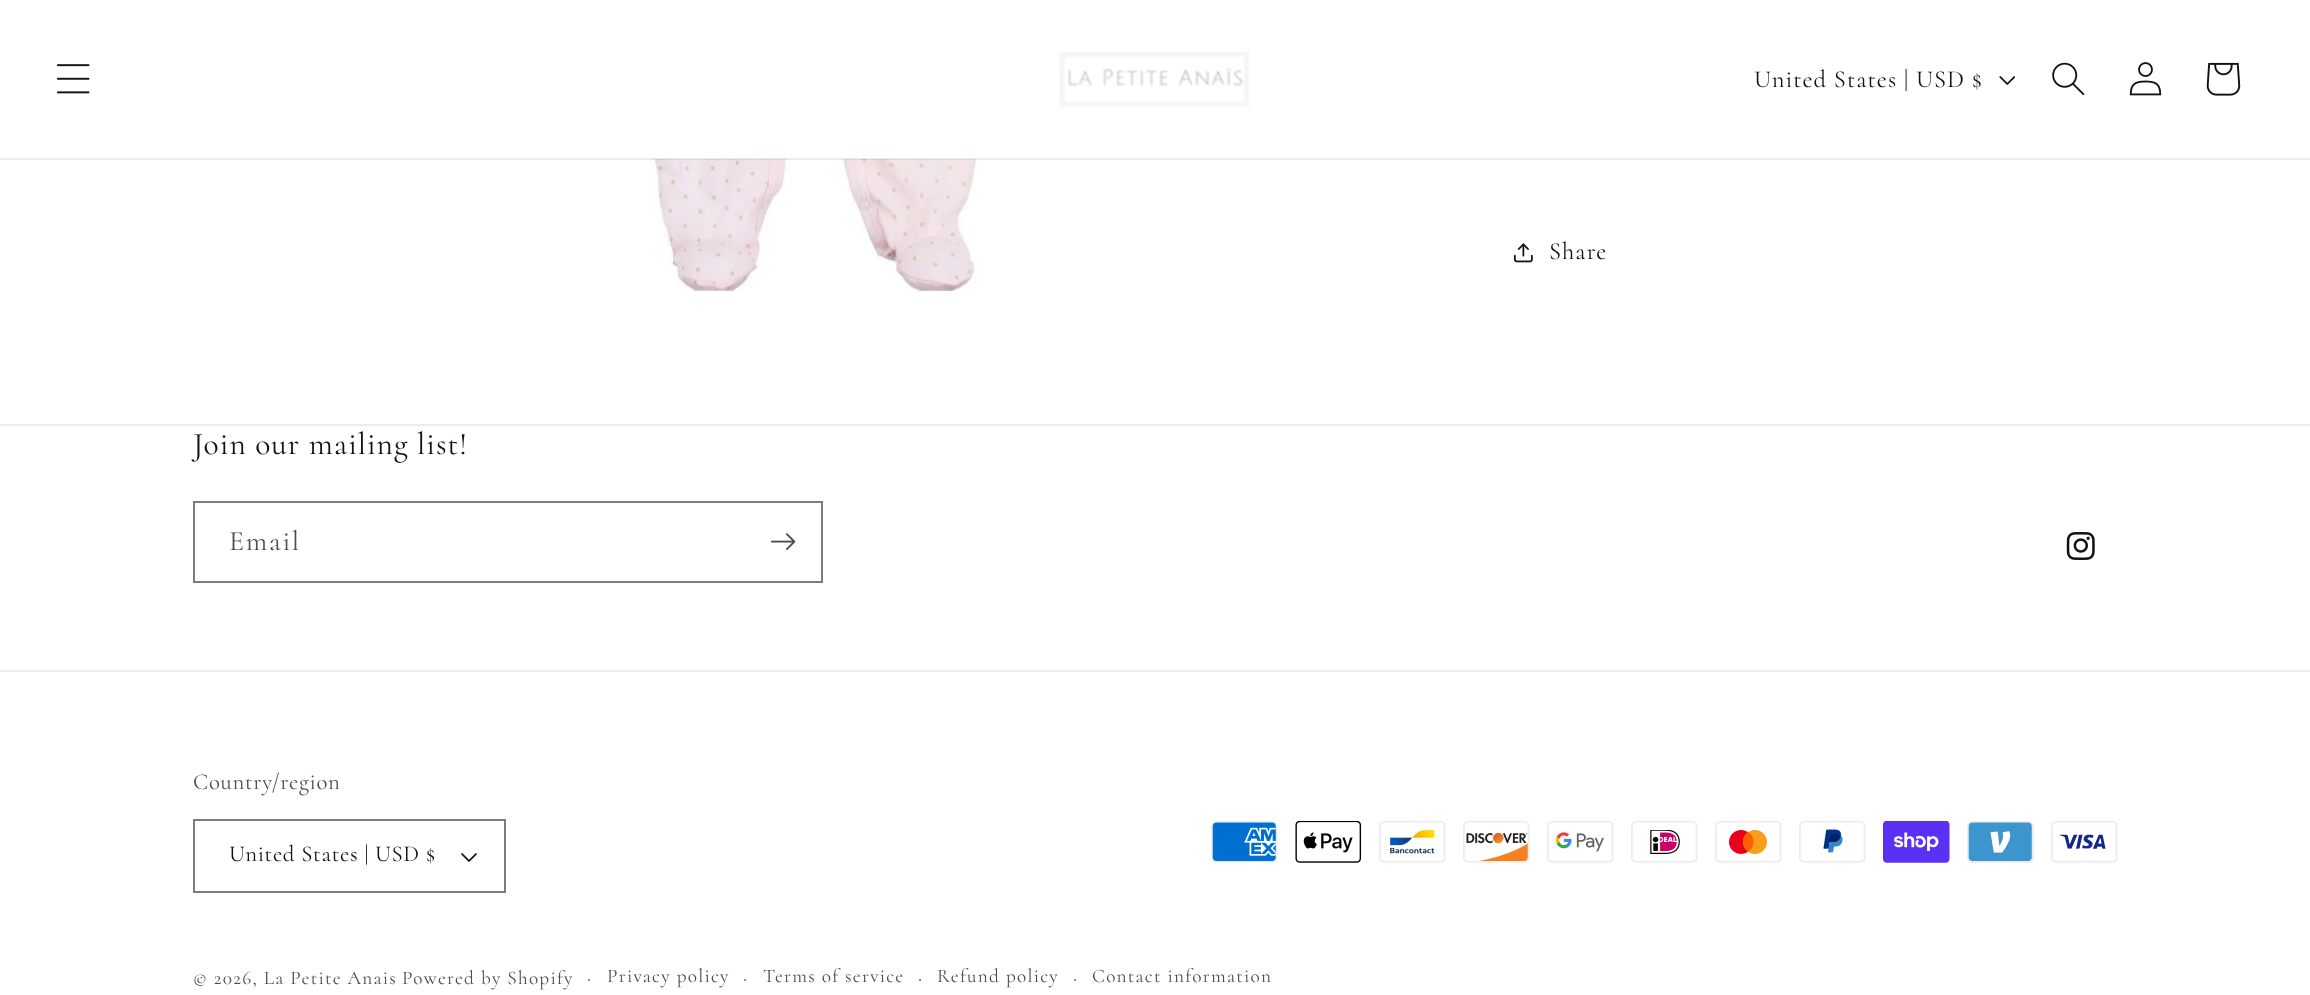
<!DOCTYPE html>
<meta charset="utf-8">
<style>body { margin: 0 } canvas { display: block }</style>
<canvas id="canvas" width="2310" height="995"></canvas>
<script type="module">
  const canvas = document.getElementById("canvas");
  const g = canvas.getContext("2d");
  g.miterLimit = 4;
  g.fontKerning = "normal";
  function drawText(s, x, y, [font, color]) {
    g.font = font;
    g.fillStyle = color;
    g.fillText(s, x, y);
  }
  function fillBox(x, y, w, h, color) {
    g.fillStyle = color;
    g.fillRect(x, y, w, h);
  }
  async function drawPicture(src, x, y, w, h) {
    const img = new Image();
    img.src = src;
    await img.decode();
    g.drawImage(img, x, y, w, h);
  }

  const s1 = ["24.5px Cormorant", "#121212"];
  const s2 = ["31.5px Cormorant", "#121212"];
  const s3 = ["28px Cormorant", "#4D4D4D"];
  const s4 = ["22.75px Cormorant", "#4D4D4D"];
  const s5 = ["22.75px Cormorant", "#121212"];
  const s6 = ["19.25px Cormorant", "#4D4D4D"];
  const s7 = ["21px Cormorant", "#4D4D4D"];

  fillBox(0, 0, 2310, 995, "#FFFFFF");
  await drawPicture("pic7.png", 636, 159, 362, 132);
  fillBox(0, 158, 2310, 2, "rgba(18, 18, 18, 0.08)");
  await drawPicture("pic1.png", 57, 64, 33, 30);
  await drawPicture("pic2.png", 1059, 52, 191, 56);
  g.letterSpacing = "1.05px";
  drawText("United States | USD $", 1754, 87, s1);
  await drawPicture("pic3.png", 1999, 76, 16, 9);
  await drawPicture("pic4.png", 2052, 62, 33, 34);
  await drawPicture("pic5.png", 2129, 62, 33, 34);
  await drawPicture("pic6.png", 2206, 62, 35, 34);
  await drawPicture("pic8.png", 1513, 243, 20, 20);
  drawText("Share", 1549, 259, s1);
  fillBox(0, 424, 2310, 2, "#ECECEC");
  drawText("Join our mailing list!", 193, 454, s2);
  g.strokeStyle = "#7D7D7D";
  g.lineWidth = 2;
  g.strokeRect(194, 502, 628, 80);
  g.letterSpacing = "1.75px";
  drawText("Email", 229, 550, s3);
  await drawPicture("pic9.png", 771, 533, 25, 17);
  await drawPicture("pic10.png", 2066, 532, 29, 28);
  fillBox(0, 670, 2310, 2, "#ECECEC");
  g.letterSpacing = "0.7px";
  drawText("Country/region", 193, 789, s4);
  await drawPicture("pic11.png", 461, 853, 16, 9);
  g.strokeRect(194, 820, 311, 72);
  drawText("United States | USD $", 229, 861, s5);
  await drawPicture("pic12.png", 1211, 821, 67, 42);
  await drawPicture("pic13.png", 1295, 821, 67, 42);
  await drawPicture("pic14.png", 1379, 821, 67, 42);
  await drawPicture("pic15.png", 1463, 821, 67, 42);
  await drawPicture("pic16.png", 1547, 821, 67, 42);
  await drawPicture("pic17.png", 1631, 821, 67, 42);
  await drawPicture("pic18.png", 1715, 821, 67, 42);
  await drawPicture("pic19.png", 1799, 821, 67, 42);
  await drawPicture("pic20.png", 1883, 821, 67, 42);
  await drawPicture("pic21.png", 1967, 821, 67, 42);
  await drawPicture("pic22.png", 2051, 821, 67, 42);
  g.letterSpacing = "1.25px";
  drawText("© 2026, La Petite Anais", 193, 984, s6);
  drawText("Powered by Shopify", 402, 984, s6);
  drawText("·", 587, 984, s7);
  drawText("Privacy policy", 607, 982, s6);
  drawText("·", 743, 984, s7);
  drawText("Terms of service", 763, 982, s6);
  drawText("·", 918, 984, s7);
  drawText("Refund policy", 937, 982, s6);
  drawText("·", 1073, 984, s7);
  drawText("Contact information", 1092, 982, s6);
</script>
